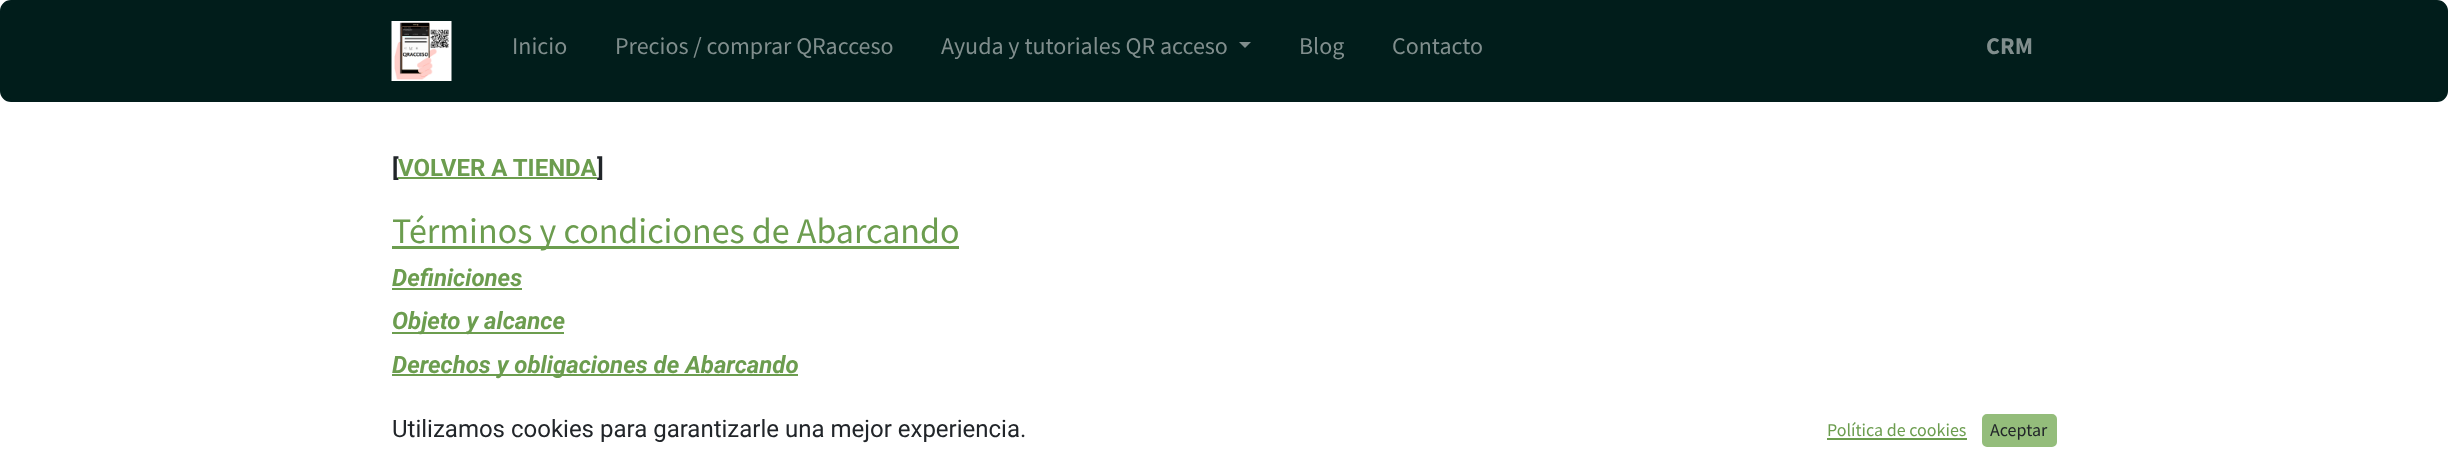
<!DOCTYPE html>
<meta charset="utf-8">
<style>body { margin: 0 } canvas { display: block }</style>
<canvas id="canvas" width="2448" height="470"></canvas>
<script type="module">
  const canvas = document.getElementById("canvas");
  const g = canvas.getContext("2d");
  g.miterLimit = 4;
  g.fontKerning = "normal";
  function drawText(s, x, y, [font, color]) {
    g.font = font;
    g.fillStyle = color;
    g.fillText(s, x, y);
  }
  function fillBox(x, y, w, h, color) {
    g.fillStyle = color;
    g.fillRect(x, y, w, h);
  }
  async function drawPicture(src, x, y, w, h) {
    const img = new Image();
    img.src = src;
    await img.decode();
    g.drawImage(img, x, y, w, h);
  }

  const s1 = ["24px Source Sans Pro", "#808E8D"];
  const s2 = ["bold 24px Source Sans Pro", "#808E8D"];
  const s3 = ["bold 24px Roboto", "#212529"];
  const s4 = ["bold 24px Roboto", "#6C9D4F"];
  const s5 = ["36px Source Sans Pro", "#6C9D4F"];
  const s6 = ["italic bold 24px Roboto", "#6C9D4F"];
  const s7 = ["24px Roboto", "#212529"];
  const s8 = ["18px Source Sans Pro", "#6C9D4F"];
  const s9 = ["18px Source Sans Pro", "#212529"];

  fillBox(0, 0, 2448, 470, "#FFFFFF");
  g.fillStyle = "#011D1B";
  g.beginPath();
  g.roundRect(1.5, 1.5, 2445, 99, 9.5);
  g.fill();
  g.strokeStyle = "#011D1B";
  g.lineWidth = 3;
  g.stroke();
  await drawPicture("pic1.png", 391, 21, 61, 60);
  drawText("Inicio", 512, 54, s1);
  drawText("Precios / comprar QRacceso", 615, 54, s1);
  drawText("Ayuda y tutoriales QR acceso", 941, 54, s1);
  g.beginPath();
  g.moveTo(1239, 42);
  g.lineTo(1251, 42);
  g.lineTo(1245, 48);
  g.closePath();
  g.fill();
  drawText("Blog", 1299, 54, s1);
  drawText("Contacto", 1392, 54, s1);
  drawText("CRM", 1986, 54, s2);
  drawText("[", 392, 176, s3);
  fillBox(398, 177, 199, 2, "#6C9D4F");
  drawText("VOLVER A TIENDA", 398, 176, s4);
  drawText("]", 597, 176, s3);
  fillBox(392, 246, 567, 3, "#6C9D4F");
  drawText("Términos y condiciones de Abarcando", 392, 243, s5);
  drawText("Definiciones", 392, 286, s6);
  fillBox(392, 288, 130, 2, "#6C9D4F");
  fillBox(392, 332, 172, 2, "#6C9D4F");
  drawText("Objeto y alcance", 392, 329, s6);
  fillBox(392, 374, 406, 2, "#6C9D4F");
  drawText("Derechos y obligaciones de Abarcando", 392, 373, s6);
  drawText("Utilizamos cookies para garantizarle una mejor experiencia.", 392, 437, s7);
  drawText("Política de cookies", 1827, 436, s8);
  fillBox(1827, 438, 140, 2, "#6C9D4F");
  g.fillStyle = "#94BD7B";
  g.beginPath();
  g.roundRect(1983, 415, 73, 31, 4);
  g.fill();
  g.strokeStyle = "#94BD7B";
  g.lineWidth = 2;
  g.stroke();
  drawText("Aceptar", 1990, 436, s9);
</script>
